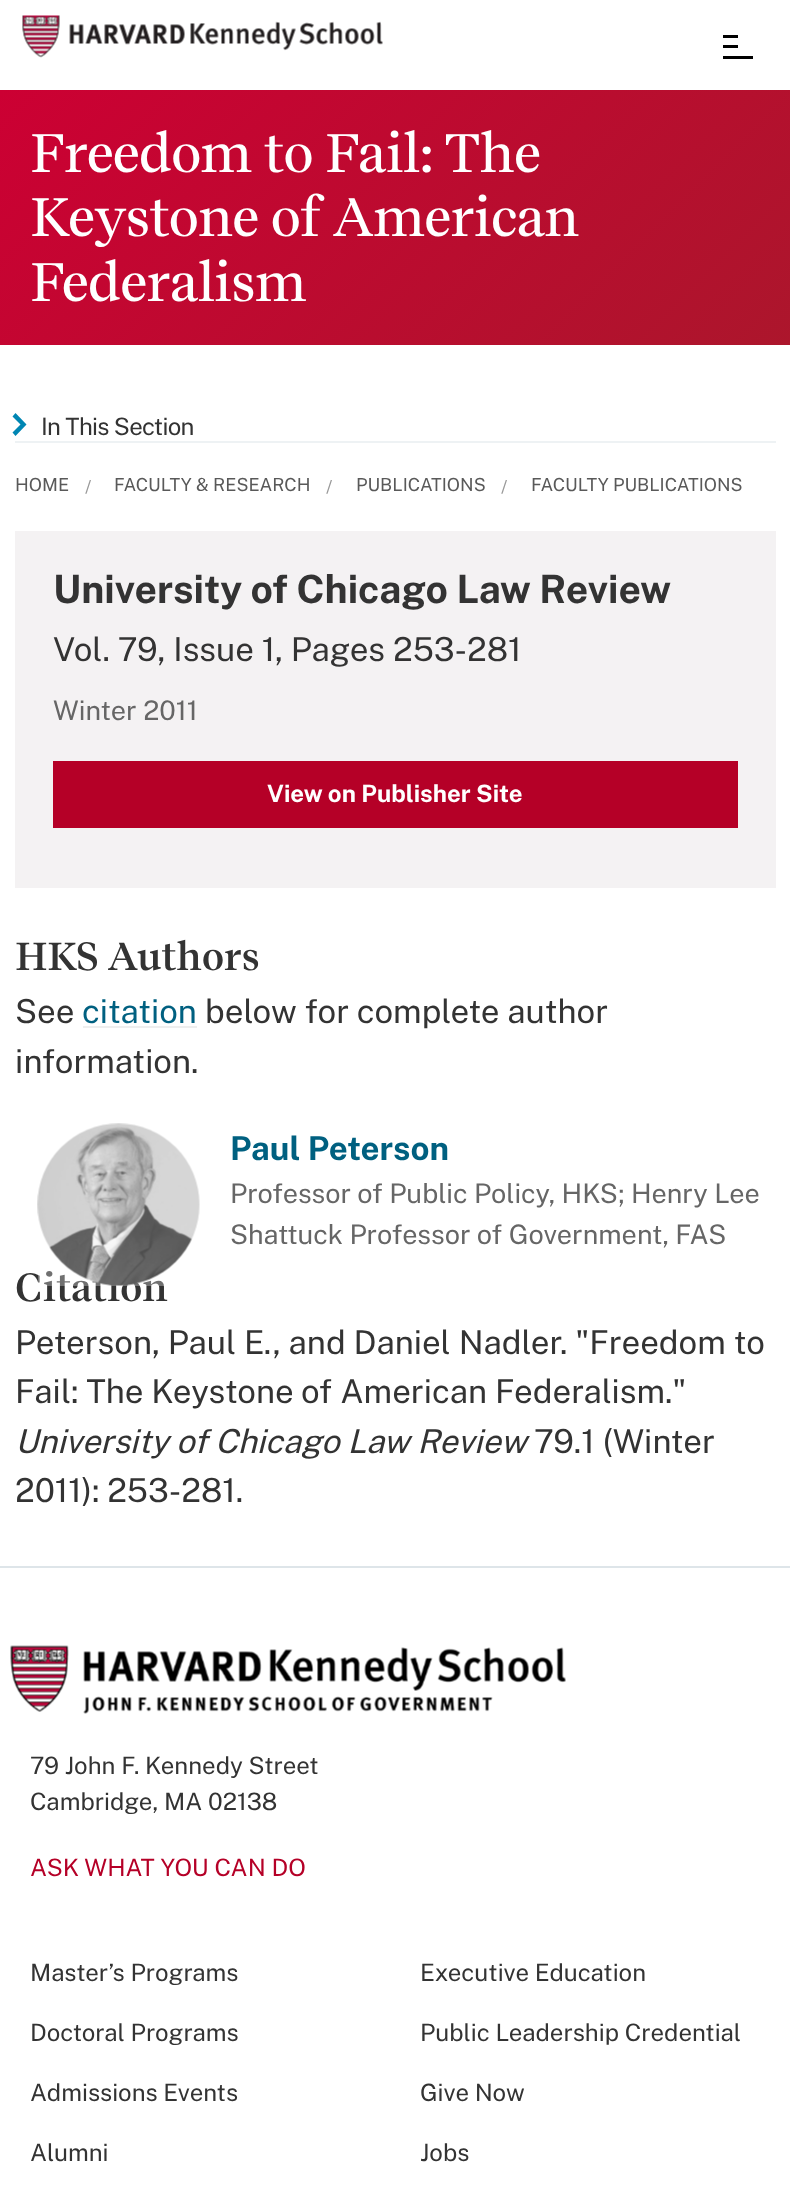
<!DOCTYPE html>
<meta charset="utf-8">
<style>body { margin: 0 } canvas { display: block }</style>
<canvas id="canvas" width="790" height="2195"></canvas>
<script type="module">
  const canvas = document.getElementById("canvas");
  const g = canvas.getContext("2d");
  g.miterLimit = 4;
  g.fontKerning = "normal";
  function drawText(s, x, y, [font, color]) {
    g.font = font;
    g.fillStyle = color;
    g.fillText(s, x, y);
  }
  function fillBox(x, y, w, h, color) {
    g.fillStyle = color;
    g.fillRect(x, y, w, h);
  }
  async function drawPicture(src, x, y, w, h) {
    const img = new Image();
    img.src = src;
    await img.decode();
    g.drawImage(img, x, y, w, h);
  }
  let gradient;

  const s1 = ["500 54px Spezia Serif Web", "#FFFFFF"];
  const s2 = ["100 24px Public Sans", "#333333"];
  const s3 = ["100 18px Public Sans", "#595959"];
  const s4 = ["100 18px Public Sans", "#999999"];
  const s5 = ["100 39px 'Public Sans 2'", "#333333"];
  const s6 = ["100 33px Public Sans", "#333333"];
  const s7 = ["100 27px Public Sans", "#666666"];
  const s8 = ["100 24px 'Public Sans 2'", "#FFFFFF"];
  const s9 = ["600 39px Spezia Serif Web", "#333333"];
  const s10 = ["100 33px Public Sans", "#006080"];
  const s11 = ["100 33px 'Public Sans 2'", "#006080"];
  const s12 = ["italic 100 33px Public Sans", "#333333"];
  const s13 = ["100 24px Public Sans", "#B50027"];

  fillBox(0, 0, 790, 2195, "#FFFFFF");
  await drawPicture("pic1.png", 22, 15, 361, 43);
  fillBox(723, 35, 15, 3, "#000000");
  fillBox(723, 45, 15, 3, "#000000");
  fillBox(723, 56, 30, 3, "#000000");
  gradient = g.createLinearGradient(134, -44, 657, 479);
  gradient.addColorStop(0, "#CC0033");
  gradient.addColorStop(1, "#AC162C");
  g.fillStyle = gradient;
  g.fillRect(0, 90, 790, 255);
  g.letterSpacing = "-1.5px";
  g.wordSpacing = "-0.5px";
  drawText("Freedom to Fail: The", 30, 172, s1);
  g.wordSpacing = "0px";
  drawText("Keystone of American", 30, 236, s1);
  drawText("Federalism", 30, 301, s1);
  fillBox(15, 441, 761, 2, "#EEF2F4");
  g.fillStyle = "#0086B3";
  g.beginPath();
  g.moveTo(26.5, 424.5);
  g.lineTo(15.5, 413);
  g.lineTo(12.5, 416.5);
  g.lineTo(20.5, 424.5);
  g.lineTo(12.5, 432.5);
  g.lineTo(15.5, 436);
  g.closePath();
  g.fill();
  g.letterSpacing = "-0.7px";
  drawText("In This Section", 41, 435, s2);
  g.letterSpacing = "0px";
  drawText("HOME", 15, 491, s3);
  drawText("/", 85, 493, s4);
  drawText("FACULTY & RESEARCH", 114, 491, s3);
  drawText("/", 326, 493, s4);
  drawText("PUBLICATIONS", 356, 491, s3);
  drawText("/", 501, 493, s4);
  drawText("FACULTY PUBLICATIONS", 531, 491, s3);
  fillBox(15, 531, 761, 357, "#F4F2F3");
  drawText("University of Chicago Law Review", 53, 603, s5);
  drawText("Vol. 79, Issue 1, Pages 253-281", 53, 661, s6);
  drawText("Winter 2011", 53, 720, s7);
  fillBox(53, 761, 685, 67, "#B50027");
  drawText("View on Publisher Site", 267, 802, s8);
  g.letterSpacing = "-0.5px";
  drawText("HKS Authors", 15, 970, s9);
  g.letterSpacing = "0px";
  drawText("See", 15, 1023, s6);
  drawText("citation", 82, 1023, s10);
  fillBox(83, 1026, 114, 2, "#EEEEEE");
  drawText("below for complete author", 205, 1023, s6);
  drawText("information.", 15, 1073, s6);
  g.letterSpacing = "-0.5px";
  drawText("Citation", 15, 1301, s9);
  await drawPicture("pic2.png", 37, 1123, 163, 163);
  fillBox(38, 1124, 162, 162, "rgba(255, 255, 255, 0.3)");
  g.letterSpacing = "0px";
  drawText("Paul Peterson", 230, 1160, s11);
  drawText("Professor of Public Policy, HKS; Henry Lee", 230, 1203, s7);
  drawText("Shattuck Professor of Government, FAS", 230, 1244, s7);
  drawText("Peterson, Paul E., and Daniel Nadler. \"Freedom to", 15, 1354, s6);
  drawText("Fail: The Keystone of American Federalism.\"", 15, 1403, s6);
  drawText("University of Chicago Law Review", 15, 1453, s12);
  drawText("79.1 (Winter", 534, 1453, s6);
  drawText("2011): 253-281.", 15, 1502, s6);
  fillBox(0, 1566, 790, 2, "#DEE5E9");
  await drawPicture("pic3.png", 10, 1645, 556, 69);
  drawText("79 John F. Kennedy Street", 30, 1774, s2);
  drawText("Cambridge, MA 02138", 30, 1810, s2);
  drawText("ASK WHAT YOU CAN DO", 30, 1876, s13);
  drawText("Master’s Programs", 30, 1981, s2);
  drawText("Executive Education", 420, 1981, s2);
  drawText("Doctoral Programs", 30, 2041, s2);
  drawText("Public Leadership Credential", 420, 2041, s2);
  drawText("Admissions Events", 30, 2101, s2);
  drawText("Give Now", 420, 2101, s2);
  drawText("Alumni", 30, 2161, s2);
  drawText("Jobs", 420, 2161, s2);
</script>
